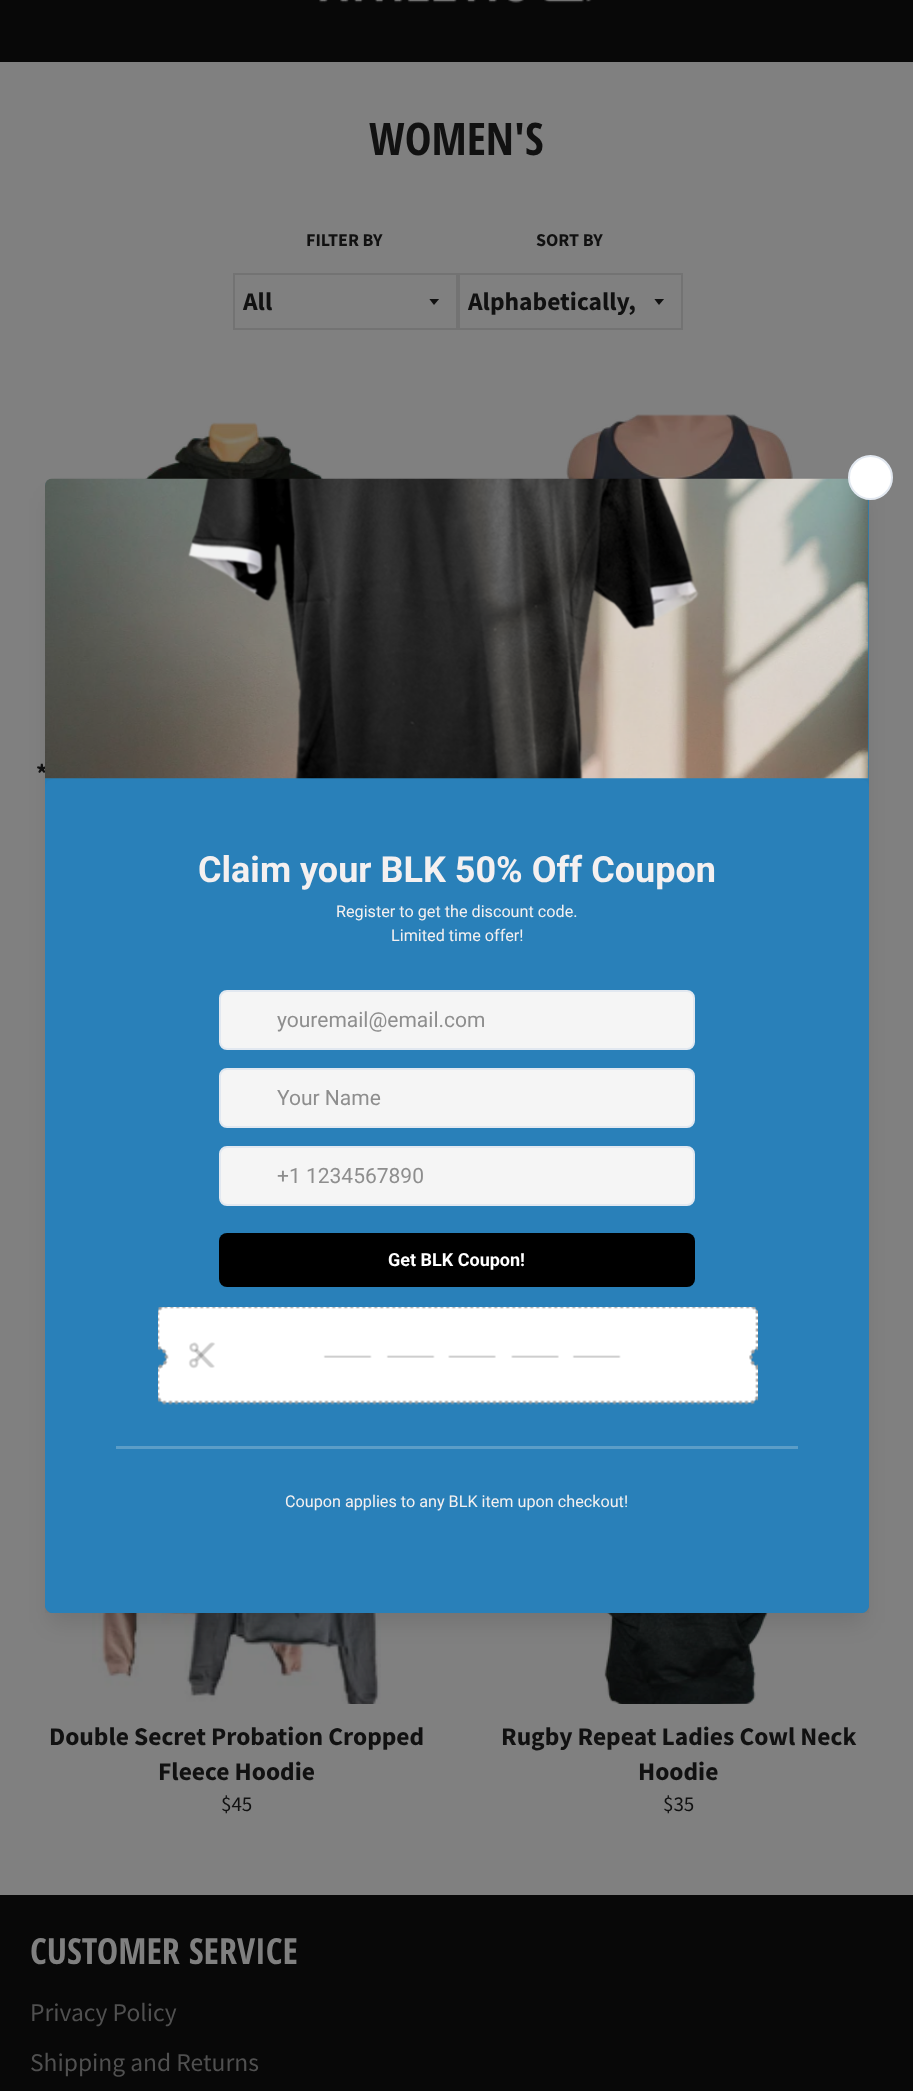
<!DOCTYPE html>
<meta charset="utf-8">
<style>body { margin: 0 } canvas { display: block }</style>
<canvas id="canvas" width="913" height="2091"></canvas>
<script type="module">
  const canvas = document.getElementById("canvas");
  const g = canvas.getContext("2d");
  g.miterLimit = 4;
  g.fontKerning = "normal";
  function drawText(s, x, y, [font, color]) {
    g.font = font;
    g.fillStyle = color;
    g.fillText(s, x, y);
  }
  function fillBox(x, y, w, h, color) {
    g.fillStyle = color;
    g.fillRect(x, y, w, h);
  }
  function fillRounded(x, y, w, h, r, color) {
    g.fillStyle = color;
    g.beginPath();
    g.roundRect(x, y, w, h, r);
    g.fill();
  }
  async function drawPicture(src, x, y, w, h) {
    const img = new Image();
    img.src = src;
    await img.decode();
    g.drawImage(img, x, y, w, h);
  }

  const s1 = ["bold 45px Open Sans Condensed", "#111111"];
  const s2 = ["bold 18px Source Sans Pro", "#111111"];
  const s3 = ["bold 25.5px Source Sans Pro", "#111111"];
  const s4 = ["21px Source Sans Pro", "#111111"];
  const s5 = ["bold 36px Open Sans Condensed", "#808080"];
  const s6 = ["25.5px Source Sans Pro", "#505050"];
  const s7 = ["bold 36px Roboto", "#F4F0F0"];
  const s8 = ["16.2px Roboto", "#F4F0F0"];
  const s9 = ["21px Roboto", "#8E8E8E"];
  const s10 = ["bold 18px Roboto", "#FFFFFF"];

  fillBox(0, 0, 913, 2091, "#808080");
  fillBox(0, 0, 913, 62, "#080808");
  await drawPicture("pic1.png", 319, 0, 273, 3);
  drawText("WOMEN'S", 369, 155, s1);
  drawText("FILTER BY", 306, 246, s2);
  g.save();
  g.beginPath();
  g.rect(429, 299, 12, 7);
  g.clip();
  g.beginPath();
  g.moveTo(429, 298.5);
  g.lineTo(434, 305);
  g.lineTo(439.5, 298.5);
  g.closePath();
  g.fill();
  g.restore();
  g.strokeStyle = "#737373";
  g.lineWidth = 2;
  g.strokeRect(234, 274, 223, 55);
  drawText("All", 243, 310, s3);
  drawText("SORT BY", 536, 246, s2);
  g.save();
  g.beginPath();
  g.rect(654, 299, 12, 7);
  g.clip();
  g.beginPath();
  g.moveTo(654, 298.5);
  g.lineTo(659, 305);
  g.lineTo(664.5, 298.5);
  g.closePath();
  g.fill();
  g.restore();
  g.strokeRect(459, 274, 223, 55);
  drawText("Alphabetically,", 468, 310, s3);
  await drawPicture("pic2.png", 566, 414, 227, 65);
  await drawPicture("pic3.png", 145, 422, 178, 57);
  drawText("*", 36, 782, s3);
  await drawPicture("pic4.png", 92, 1613, 289, 91);
  drawText("Double Secret Probation Cropped", 49, 1745, s3);
  drawText("Fleece Hoodie", 158, 1780, s3);
  drawText("$45", 221, 1811, s4);
  await drawPicture("pic5.png", 604, 1613, 164, 91);
  drawText("Rugby Repeat Ladies Cowl Neck", 501, 1745, s3);
  drawText("Hoodie", 638, 1780, s3);
  drawText("$35", 663, 1811, s4);
  fillBox(0, 1895, 913, 196, "#080808");
  drawText("CUSTOMER SERVICE", 30, 1964, s5);
  drawText("Privacy Policy", 30, 2021, s6);
  drawText("Shipping and Returns", 30, 2071, s6);
  g.fillStyle = "rgba(0, 0, 0, 0.1)";
  g.filter = "blur(11px)";
  g.beginPath();
  g.roundRect(50, 498, 814, 1125, 3);
  g.fill();
  g.filter = "none";
  fillRounded(45, 479, 824, 1134, 8, "#2980B9");
  await drawPicture("pic6.png", 45, 478, 824, 301);
  g.fillStyle = "#FFFFFF";
  g.beginPath();
  g.arc(870.5, 477.5, 21.5, 0, Math.PI * 2);
  g.fill();
  g.strokeStyle = "#E2E8F0";
  g.stroke();
  g.save();
  g.beginPath();
  g.rect(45, 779, 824, 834);
  g.clip();
  g.fillStyle = "rgba(0, 0, 0, 0.12)";
  g.filter = "blur(15px)";
  g.beginPath();
  g.roundRect(50, 783, 814, 825, 3);
  g.fill();
  g.filter = "none";
  g.restore();
  fillRounded(45, 779, 824, 834, 8, "#2980B9");
  drawText("Claim your BLK 50% Off Coupon", 198, 882, s7);
  drawText("Register to get the discount code.", 336, 917, s8);
  drawText("Limited time offer!", 391, 941, s8);
  g.fillStyle = "#F5F5F5";
  g.beginPath();
  g.roundRect(220, 991, 474, 58, 7);
  g.fill();
  g.stroke();
  drawText("youremail@email.com", 277, 1027, s9);
  g.fillStyle = "#F5F5F5";
  g.beginPath();
  g.roundRect(220, 1069, 474, 58, 7);
  g.fill();
  g.stroke();
  drawText("Your Name", 277, 1105, s9);
  g.fillStyle = "#F5F5F5";
  g.beginPath();
  g.roundRect(220, 1147, 474, 58, 7);
  g.fill();
  g.stroke();
  drawText("+1 1234567890", 277, 1183, s9);
  fillRounded(219, 1233, 476, 54, 8, "#000000");
  drawText("Get BLK Coupon!", 388, 1266, s10);
  await drawPicture("pic7.png", 158, 1307, 600, 98);
  fillBox(116, 1446, 682, 3, "#5B9DC7");
  drawText("Coupon applies to any BLK item upon checkout!", 285, 1507, s8);
</script>
